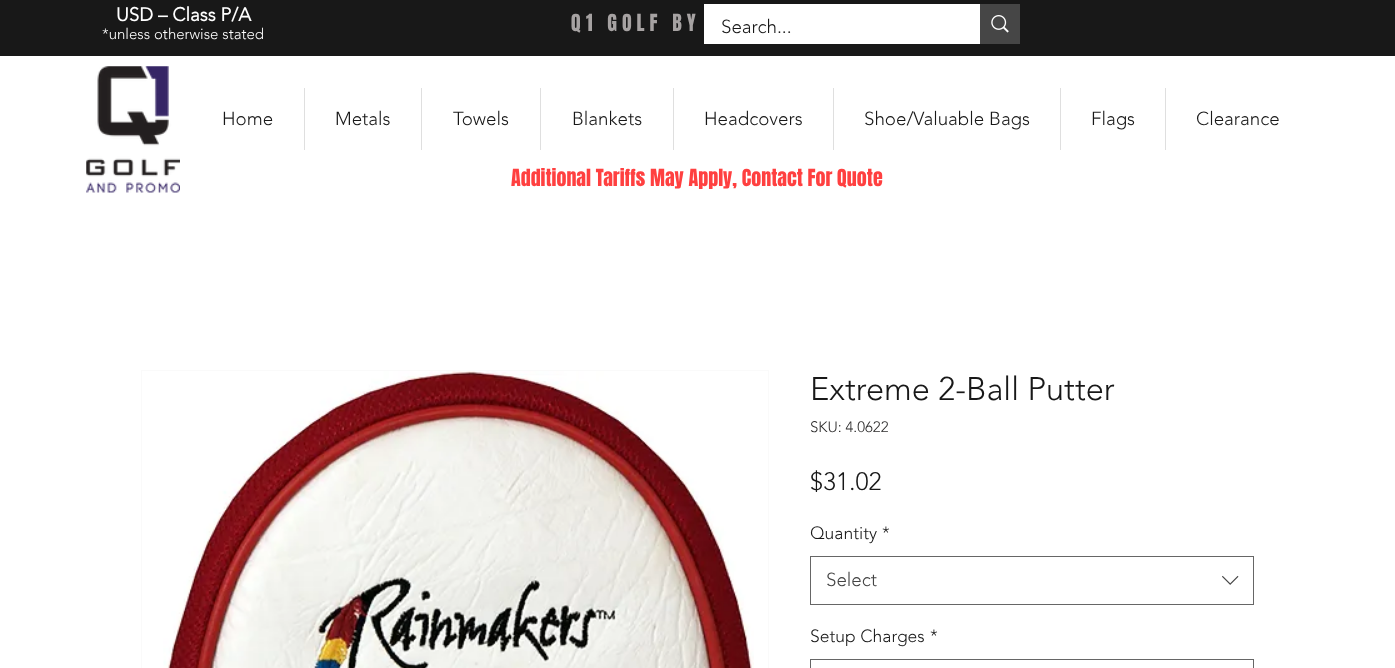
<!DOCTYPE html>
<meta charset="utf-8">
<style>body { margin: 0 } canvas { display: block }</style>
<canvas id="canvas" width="1395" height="668"></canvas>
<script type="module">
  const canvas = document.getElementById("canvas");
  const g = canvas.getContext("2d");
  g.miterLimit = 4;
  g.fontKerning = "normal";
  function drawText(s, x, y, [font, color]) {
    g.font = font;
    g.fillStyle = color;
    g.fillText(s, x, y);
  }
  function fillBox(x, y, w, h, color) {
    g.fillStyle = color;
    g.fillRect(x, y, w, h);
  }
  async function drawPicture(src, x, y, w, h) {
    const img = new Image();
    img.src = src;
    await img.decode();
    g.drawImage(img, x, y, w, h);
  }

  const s1 = ["bold 18.75px 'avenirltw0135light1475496'", "#FFFFFF"];
  const s2 = ["300 15px 'avenirltw0135light1475496'", "#FFFFFF"];
  const s3 = ["20px Anton", "#A6A2A2"];
  const s4 = ["300 18.75px 'avenirltw0135light1475496'", "#181818"];
  const s5 = ["20px Anton", "#FF4040"];
  const s6 = ["300 32.5px 'avenirltw0135light1475496'", "#181818"];
  const s7 = ["300 15px 'avenirltw0135light1475496'", "#2E2D2D"];
  const s8 = ["300 25px 'avenirltw0135light1475496'", "#181818"];
  const s9 = ["300 17.5px 'avenirltw0135light1475496'", "#181818"];
  const s10 = ["300 18.75px 'avenirltw0135light1475496'", "#444444"];

  fillBox(0, 0, 1395, 668, "#FFFFFF");
  fillBox(0, 0, 1395, 56, "#181818");
  drawText("USD – Class P/A", 116, 21, s1);
  drawText("*unless otherwise stated", 102, 39, s2);
  g.letterSpacing = "5px";
  drawText("Q1 GOLF BY", 571, 31, s3);
  await drawPicture("pic1.png", 86, 66, 94, 127);
  g.letterSpacing = "0px";
  drawText("Home", 222, 125, s4);
  fillBox(304, 88, 1, 62, "#DFDFDF");
  drawText("Metals", 335, 125, s4);
  fillBox(421, 88, 1, 62, "#DFDFDF");
  drawText("Towels", 453, 125, s4);
  fillBox(540, 88, 1, 62, "#DFDFDF");
  drawText("Blankets", 572, 125, s4);
  fillBox(673, 88, 1, 62, "#DFDFDF");
  drawText("Headcovers", 704, 125, s4);
  fillBox(833, 88, 1, 62, "#DFDFDF");
  drawText("Shoe/Valuable Bags", 864, 125, s4);
  fillBox(1060, 88, 1, 62, "#DFDFDF");
  drawText("Flags", 1091, 125, s4);
  fillBox(1165, 88, 1, 62, "#DFDFDF");
  drawText("Clearance", 1196, 125, s4);
  drawText("Additional Tariffs May Apply, Contact For Quote", 511, 186, s5);
  fillBox(704, 4, 276, 40, "#FFFFFF");
  drawText("Search...", 721, 33, s4);
  fillBox(980, 4, 40, 40, "#464646");
  await drawPicture("pic2.png", 991, 15, 18, 18);
  g.strokeStyle = "#FAFAFA";
  g.strokeRect(141.5, 370.5, 627, 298);
  await drawPicture("pic3.png", 163, 371, 591, 297);
  drawText("Extreme 2-Ball Putter", 810, 400, s6);
  drawText("SKU: 4.0622", 810, 432, s7);
  drawText("$31.02", 810, 490, s8);
  drawText("Quantity", 810, 539, s9);
  drawText("*", 882, 539, s9);
  g.strokeStyle = "#666666";
  g.strokeRect(810.5, 556.5, 443, 48);
  drawText("Select", 826, 586, s10);
  await drawPicture("pic4.png", 1222, 575, 17, 10);
  drawText("Setup Charges", 810, 642, s9);
  drawText("*", 930, 642, s9);
  g.strokeRect(810.5, 659.5, 443, 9);
</script>
